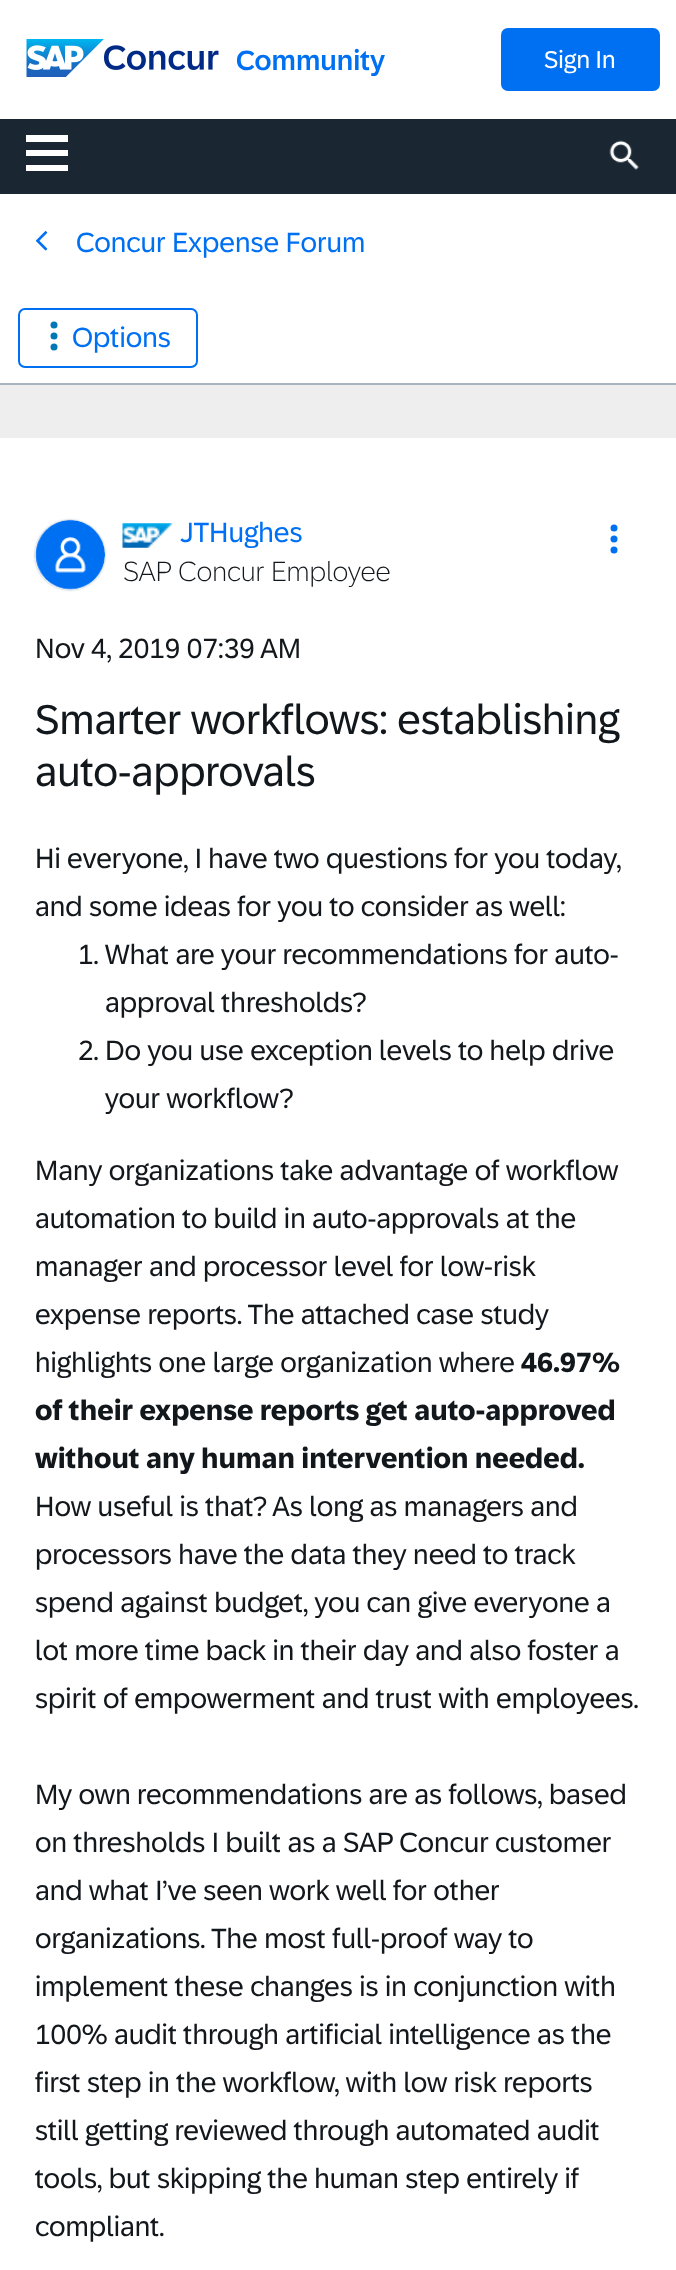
<!DOCTYPE html>
<meta charset="utf-8">
<style>body { margin: 0 } canvas { display: block }</style>
<canvas id="canvas" width="676" height="2270"></canvas>
<script type="module">
  const canvas = document.getElementById("canvas");
  const g = canvas.getContext("2d");
  g.miterLimit = 4;
  g.fontKerning = "normal";
  function drawText(s, x, y, [font, color]) {
    g.font = font;
    g.fillStyle = color;
    g.fillText(s, x, y);
  }
  function fillBox(x, y, w, h, color) {
    g.fillStyle = color;
    g.fillRect(x, y, w, h);
  }
  function fillRounded(x, y, w, h, r, color) {
    g.fillStyle = color;
    g.beginPath();
    g.roundRect(x, y, w, h, r);
    g.fill();
  }
  async function drawPicture(src, x, y, w, h) {
    const img = new Image();
    img.src = src;
    await img.decode();
    g.drawImage(img, x, y, w, h);
  }

  const s1 = ["500 28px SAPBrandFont", "#0070F2"];
  const s2 = ["24.5px SAPBrandFont", "#FFFFFF"];
  const s3 = ["28px SAPBrandFont", "#0070F2"];
  const s4 = ["300 28px SAPBrandFont", "#12171C"];
  const s5 = ["28px SAPBrandFont", "#12171C"];
  const s6 = ["42px SAPBrandFont", "#12171C"];
  const s7 = ["bold 28px SAPBrandFont", "#12171C"];

  fillBox(0, 0, 676, 2270, "#EEEEEE");
  fillBox(0, 0, 676, 119, "#FFFFFF");
  await drawPicture("pic1.png", 26, 39, 193, 38);
  drawText("Community", 236, 70, s1);
  fillRounded(501, 28, 159, 63, 7, "#0070F2");
  drawText("Sign In", 544, 68, s2);
  fillBox(0, 119, 676, 75, "#1A2733");
  g.fillStyle = "#FFFFFF";
  g.beginPath();
  g.moveTo(26, 135);
  g.lineTo(68, 135);
  g.lineTo(68, 142);
  g.lineTo(26, 142);
  g.closePath();
  g.moveTo(26, 150);
  g.lineTo(68, 150);
  g.lineTo(68, 156);
  g.lineTo(26, 156);
  g.closePath();
  g.moveTo(26, 165);
  g.lineTo(68, 165);
  g.lineTo(68, 171);
  g.lineTo(26, 171);
  g.closePath();
  g.fill("evenodd");
  await drawPicture("pic2.png", 609, 140, 30, 30);
  fillBox(0, 194, 676, 189, "#FFFFFF");
  fillBox(0, 383, 676, 2, "#A9B4BE");
  await drawPicture("pic3.png", 35, 231, 13, 20);
  drawText("Concur Expense Forum", 76, 252, s3);
  g.beginPath();
  g.roundRect(19, 309, 178, 58, 6);
  g.strokeStyle = "#0070F2";
  g.lineWidth = 2;
  g.stroke();
  g.fillStyle = "#0078B6";
  g.beginPath();
  g.arc(54, 325, 3.5, 0, Math.PI * 2);
  g.fill();
  g.beginPath();
  g.arc(54, 336, 3.5, 0, Math.PI * 2);
  g.fill();
  g.beginPath();
  g.arc(54, 347, 3.5, 0, Math.PI * 2);
  g.fill();
  drawText("Options", 72, 347, s3);
  fillBox(0, 438, 676, 1832, "#FFFFFF");
  g.save();
  g.beginPath();
  g.moveTo(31, 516);
  g.lineTo(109, 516);
  g.lineTo(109, 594);
  g.lineTo(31, 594);
  g.closePath();
  g.moveTo(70, 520);
  g.bezierCurveTo(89.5, 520, 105, 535.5, 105, 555);
  g.bezierCurveTo(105, 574.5, 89.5, 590, 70, 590);
  g.bezierCurveTo(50.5, 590, 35, 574.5, 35, 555);
  g.bezierCurveTo(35, 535.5, 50.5, 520, 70, 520);
  g.closePath();
  g.clip("evenodd");
  g.fillStyle = "#A9B4BE";
  g.filter = "blur(1px)";
  g.beginPath();
  g.roundRect(35, 520, 70, 70, 35);
  g.fill();
  g.filter = "none";
  g.restore();
  await drawPicture("pic4.png", 35, 519, 70, 71);
  await drawPicture("pic5.png", 122, 523, 51, 25);
  drawText("JTHughes", 180, 542, s3);
  drawText("SAP Concur Employee", 123, 581, s4);
  g.fillStyle = "#0070F2";
  g.beginPath();
  g.arc(614, 528, 3.5, 0, Math.PI * 2);
  g.fill();
  g.beginPath();
  g.arc(614, 539, 3.5, 0, Math.PI * 2);
  g.fill();
  g.beginPath();
  g.arc(614, 550, 3.5, 0, Math.PI * 2);
  g.fill();
  drawText("Nov 4, 2019 07:39 AM", 35, 658, s5);
  drawText("Smarter workflows: establishing", 35, 734, s6);
  drawText("auto-approvals", 35, 786, s6);
  drawText("Hi everyone, I have two questions for you today,", 35, 868, s5);
  drawText("and some ideas for you to consider as well:", 35, 916, s5);
  drawText("1. What are your recommendations for auto-", 78, 964, s5);
  drawText("approval thresholds?", 105, 1012, s5);
  drawText("2. Do you use exception levels to help drive", 78, 1060, s5);
  drawText("your workflow?", 105, 1108, s5);
  drawText("Many organizations take advantage of workflow", 35, 1180, s5);
  drawText("automation to build in auto-approvals at the", 35, 1228, s5);
  drawText("manager and processor level for low-risk", 35, 1276, s5);
  drawText("expense reports. The attached case study", 35, 1324, s5);
  drawText("highlights one large organization where", 35, 1372, s5);
  drawText("46.97%", 521, 1372, s7);
  drawText("of their expense reports get auto-approved", 35, 1420, s7);
  drawText("without any human intervention needed.", 35, 1468, s7);
  drawText("How useful is that? As long as managers and", 35, 1516, s5);
  drawText("processors have the data they need to track", 35, 1564, s5);
  drawText("spend against budget, you can give everyone a", 35, 1612, s5);
  drawText("lot more time back in their day and also foster a", 35, 1660, s5);
  drawText("spirit of empowerment and trust with employees.", 35, 1708, s5);
  drawText("My own recommendations are as follows, based", 35, 1804, s5);
  drawText("on thresholds I built as a SAP Concur customer", 35, 1852, s5);
  drawText("and what I’ve seen work well for other", 35, 1900, s5);
  drawText("organizations. The most full-proof way to", 35, 1948, s5);
  drawText("implement these changes is in conjunction with", 35, 1996, s5);
  drawText("100% audit through artificial intelligence as the", 35, 2044, s5);
  drawText("first step in the workflow, with low risk reports", 35, 2092, s5);
  drawText("still getting reviewed through automated audit", 35, 2140, s5);
  drawText("tools, but skipping the human step entirely if", 35, 2188, s5);
  drawText("compliant.", 35, 2236, s5);
</script>
